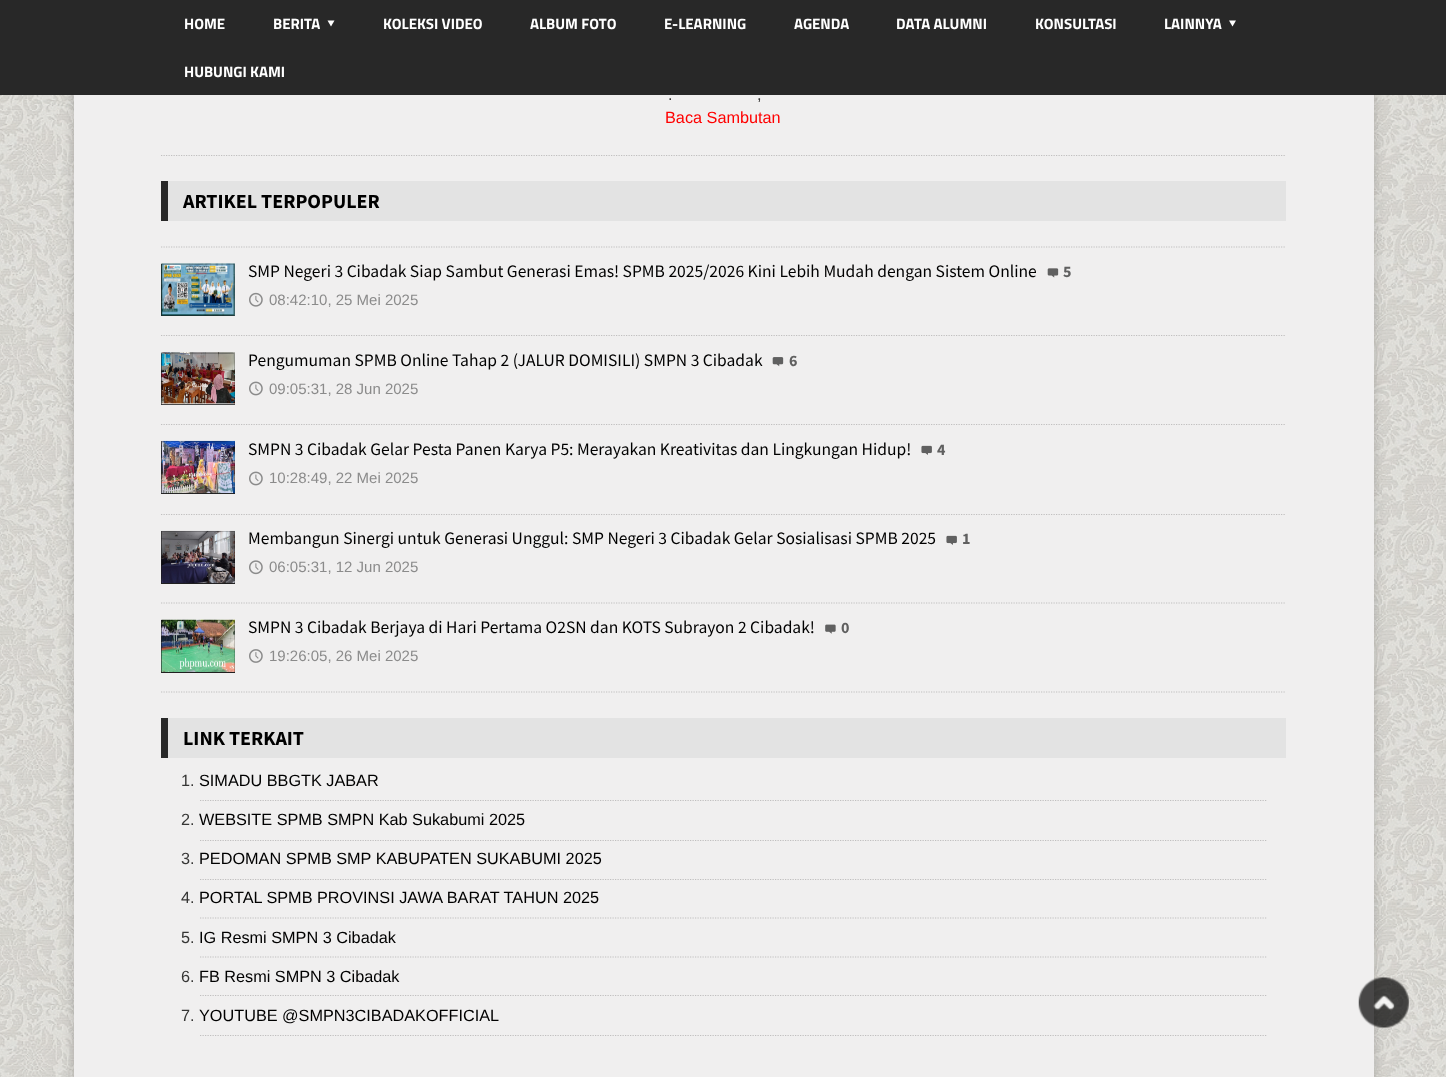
<!DOCTYPE html>
<meta charset="utf-8">
<style>body { margin: 0 } canvas { display: block }</style>
<canvas id="canvas" width="1446" height="1077"></canvas>
<script type="module">
  const canvas = document.getElementById("canvas");
  const g = canvas.getContext("2d");
  g.miterLimit = 4;
  g.fontKerning = "normal";
  function drawText(s, x, y, [font, color]) {
    g.font = font;
    g.fillStyle = color;
    g.fillText(s, x, y);
  }
  function fillBox(x, y, w, h, color) {
    g.fillStyle = color;
    g.fillRect(x, y, w, h);
  }
  async function drawPicture(src, x, y, w, h) {
    const img = new Image();
    img.src = src;
    await img.decode();
    g.drawImage(img, x, y, w, h);
  }

  const s1 = ["bold 15px Titillium Web", "#FFFFFF"];
  const s2 = ["16.25px Liberation Sans", "#363635"];
  const s3 = ["16.25px Liberation Sans", "#FF0000"];
  const s4 = ["bold 20px Source Sans Pro", "#000000"];
  const s5 = ["17.5px Source Sans Pro", "#000000"];
  const s6 = ["bold 16px Source Sans Pro", "#606060"];
  const s7 = ["15px Liberation Sans", "#8B8B8B"];
  const s8 = ["16.25px Liberation Sans", "#000000"];

  fillBox(0, 0, 1446, 1077, "#E3E3E3");
  await drawPicture("pic1.png", 0, 95, 1446, 982);
  g.fillStyle = "rgba(0, 0, 0, 0.2)";
  g.filter = "blur(6px)";
  g.beginPath();
  g.rect(74, -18, 1300, 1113);
  g.fill();
  g.filter = "none";
  fillBox(74, 95, 1300, 982, "#F0EFEF");
  fillBox(0, 0, 1446, 95, "#282828");
  drawText("HOME", 184, 29, s1);
  drawText("BERITA", 273, 29, s1);
  g.beginPath();
  g.moveTo(334.5, 20.5);
  g.lineTo(331, 26.5);
  g.lineTo(327.5, 20.5);
  g.closePath();
  g.fill();
  drawText("KOLEKSI VIDEO", 383, 29, s1);
  drawText("ALBUM FOTO", 530, 29, s1);
  drawText("E-LEARNING", 664, 29, s1);
  drawText("AGENDA", 794, 29, s1);
  drawText("DATA ALUMNI", 896, 29, s1);
  drawText("KONSULTASI", 1035, 29, s1);
  drawText("LAINNYA", 1164, 29, s1);
  g.beginPath();
  g.moveTo(1236, 20.5);
  g.lineTo(1232.5, 26.5);
  g.lineTo(1229, 20.5);
  g.closePath();
  g.fill();
  drawText("HUBUNGI KAMI", 184, 77, s1);
  g.beginPath();
  g.moveTo(161, 155.5);
  g.lineTo(1286, 155.5);
  g.strokeStyle = "#C0BFBF";
  g.lineWidth = 1.2;
  g.setLineDash([1.25, 1.25]);
  g.stroke();
  drawText(".", 668, 100, s2);
  drawText(",", 757, 100, s2);
  drawText("Baca Sambutan", 665, 123, s3);
  fillBox(168, 181, 1118, 40, "#E3E3E3");
  fillBox(161, 181, 7, 40, "#282828");
  drawText("ARTIKEL TERPOPULER", 183, 208, s4);
  g.beginPath();
  g.moveTo(161, 692);
  g.lineTo(1286, 692);
  g.stroke();
  g.beginPath();
  g.moveTo(161, 247);
  g.lineTo(1286, 247);
  g.stroke();
  g.beginPath();
  g.moveTo(161, 335.5);
  g.lineTo(1286, 335.5);
  g.stroke();
  fillBox(161, 264, 74, 52, "#282828");
  await drawPicture("pic2.png", 161, 263, 74, 53);
  g.strokeStyle = "rgba(0, 0, 0, 0.2)";
  g.lineWidth = 1;
  g.setLineDash([]);
  g.strokeRect(161.5, 264.5, 73, 51);
  drawText("SMP Negeri 3 Cibadak Siap Sambut Generasi Emas! SPMB 2025/2026 Kini Lebih Mudah dengan Sistem Online", 248, 277, s5);
  await drawPicture("pic3.png", 1047, 268, 12, 10);
  drawText("5", 1063, 277, s6);
  await drawPicture("pic4.png", 249, 292, 14, 15);
  drawText("08:42:10, 25 Mei 2025", 269, 305, s7);
  g.beginPath();
  g.moveTo(161, 424.5);
  g.lineTo(1286, 424.5);
  g.strokeStyle = "#C0BFBF";
  g.lineWidth = 1.2;
  g.setLineDash([1.25, 1.25]);
  g.stroke();
  fillBox(161, 353, 74, 52, "#282828");
  await drawPicture("pic5.png", 161, 352, 74, 53);
  g.strokeStyle = "rgba(0, 0, 0, 0.2)";
  g.lineWidth = 1;
  g.setLineDash([]);
  g.strokeRect(161.5, 353.5, 73, 51);
  drawText("Pengumuman SPMB Online Tahap 2 (JALUR DOMISILI) SMPN 3 Cibadak", 248, 366, s5);
  await drawPicture("pic6.png", 772, 357, 12, 10);
  drawText("6", 789, 366, s6);
  await drawPicture("pic7.png", 249, 381, 14, 15);
  drawText("09:05:31, 28 Jun 2025", 269, 394, s7);
  g.beginPath();
  g.moveTo(161, 514.5);
  g.lineTo(1286, 514.5);
  g.strokeStyle = "#C0BFBF";
  g.lineWidth = 1.2;
  g.setLineDash([1.25, 1.25]);
  g.stroke();
  fillBox(161, 441, 74, 53, "#282828");
  await drawPicture("pic8.png", 161, 440, 74, 54);
  g.strokeStyle = "rgba(0, 0, 0, 0.2)";
  g.lineWidth = 1;
  g.setLineDash([]);
  g.strokeRect(161.5, 441.5, 73, 52);
  drawText("SMPN 3 Cibadak Gelar Pesta Panen Karya P5: Merayakan Kreativitas dan Lingkungan Hidup!", 248, 455, s5);
  await drawPicture("pic9.png", 921, 445, 11, 10);
  drawText("4", 937, 455, s6);
  await drawPicture("pic7.png", 249, 471, 14, 15);
  drawText("10:28:49, 22 Mei 2025", 269, 483, s7);
  g.beginPath();
  g.moveTo(161, 603);
  g.lineTo(1286, 603);
  g.strokeStyle = "#C0BFBF";
  g.lineWidth = 1.2;
  g.setLineDash([1.25, 1.25]);
  g.stroke();
  fillBox(161, 531, 74, 53, "#282828");
  await drawPicture("pic10.png", 161, 530, 74, 54);
  g.strokeStyle = "rgba(0, 0, 0, 0.2)";
  g.lineWidth = 1;
  g.setLineDash([]);
  g.strokeRect(161.5, 531.5, 73, 52);
  drawText("Membangun Sinergi untuk Generasi Unggul: SMP Negeri 3 Cibadak Gelar Sosialisasi SPMB 2025", 248, 544, s5);
  await drawPicture("pic9.png", 946, 535, 11, 10);
  drawText("1", 962, 544, s6);
  await drawPicture("pic11.png", 249, 560, 14, 15);
  drawText("06:05:31, 12 Jun 2025", 269, 572, s7);
  fillBox(161, 620, 74, 53, "#282828");
  await drawPicture("pic12.png", 161, 619, 74, 53);
  g.strokeRect(161.5, 620.5, 73, 52);
  drawText("SMPN 3 Cibadak Berjaya di Hari Pertama O2SN dan KOTS Subrayon 2 Cibadak!", 248, 633, s5);
  await drawPicture("pic13.png", 825, 624, 11, 10);
  drawText("0", 841, 633, s6);
  await drawPicture("pic14.png", 249, 649, 14, 14);
  drawText("19:26:05, 26 Mei 2025", 269, 661, s7);
  fillBox(168, 718, 1118, 40, "#E3E3E3");
  fillBox(161, 718, 7, 40, "#282828");
  drawText("LINK TERKAIT", 183, 745, s4);
  g.beginPath();
  g.moveTo(200, 800.5);
  g.lineTo(1267.5, 800.5);
  g.strokeStyle = "#C0BFBF";
  g.lineWidth = 1.2;
  g.setLineDash([1.25, 1.25]);
  g.stroke();
  drawText("1.", 181, 786, s2);
  drawText("SIMADU BBGTK JABAR", 199, 786, s8);
  g.beginPath();
  g.moveTo(200, 840.5);
  g.lineTo(1267.5, 840.5);
  g.stroke();
  drawText("2.", 181, 825, s2);
  drawText("WEBSITE SPMB SMPN Kab Sukabumi 2025", 199, 825, s8);
  g.beginPath();
  g.moveTo(200, 879.5);
  g.lineTo(1267.5, 879.5);
  g.stroke();
  drawText("3.", 181, 864, s2);
  drawText("PEDOMAN SPMB SMP KABUPATEN SUKABUMI 2025", 199, 864, s8);
  g.beginPath();
  g.moveTo(200, 918);
  g.lineTo(1267.5, 918);
  g.stroke();
  drawText("4.", 181, 903, s2);
  drawText("PORTAL SPMB PROVINSI JAWA BARAT TAHUN 2025", 199, 903, s8);
  g.beginPath();
  g.moveTo(200, 957);
  g.lineTo(1267.5, 957);
  g.stroke();
  drawText("5.", 181, 943, s2);
  drawText("IG Resmi SMPN 3 Cibadak", 199, 943, s8);
  g.beginPath();
  g.moveTo(200, 995.5);
  g.lineTo(1267.5, 995.5);
  g.stroke();
  drawText("6.", 181, 982, s2);
  drawText("FB Resmi SMPN 3 Cibadak", 199, 982, s8);
  g.beginPath();
  g.moveTo(200, 1035.5);
  g.lineTo(1267.5, 1035.5);
  g.stroke();
  drawText("7.", 181, 1021, s2);
  drawText("YOUTUBE @SMPN3CIBADAKOFFICIAL", 199, 1021, s8);
  await drawPicture("pic15.png", 1358, 977, 51, 51);
</script>
